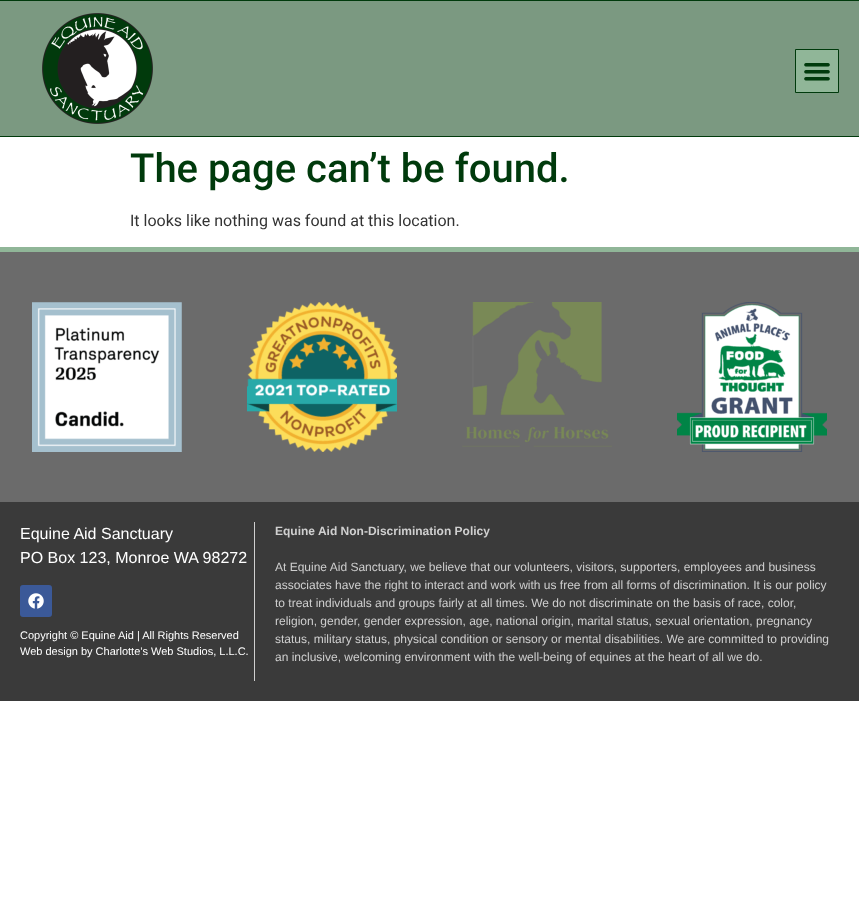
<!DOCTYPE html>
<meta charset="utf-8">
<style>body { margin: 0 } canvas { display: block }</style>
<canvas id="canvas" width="859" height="900"></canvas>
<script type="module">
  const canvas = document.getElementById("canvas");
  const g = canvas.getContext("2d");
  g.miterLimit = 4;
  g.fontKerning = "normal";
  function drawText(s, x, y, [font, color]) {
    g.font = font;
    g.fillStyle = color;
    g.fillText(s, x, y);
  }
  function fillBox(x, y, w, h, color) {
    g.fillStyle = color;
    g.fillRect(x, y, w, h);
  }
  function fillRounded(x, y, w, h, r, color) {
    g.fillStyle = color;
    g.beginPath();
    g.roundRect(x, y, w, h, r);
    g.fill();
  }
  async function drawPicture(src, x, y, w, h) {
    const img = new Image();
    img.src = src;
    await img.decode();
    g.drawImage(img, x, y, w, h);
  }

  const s1 = ["500 40px Roboto", "#003A0C"];
  const s2 = ["16px Roboto", "#333333"];
  const s3 = ["16px Liberation Sans", "#FFFFFF"];
  const s4 = ["11px Liberation Sans", "#FFFFFF"];
  const s5 = ["bold 12px Liberation Sans", "#CFCFCF"];
  const s6 = ["12px Liberation Sans", "#CFCFCF"];

  fillBox(0, 0, 859, 900, "#FFFFFF");
  fillBox(0, 1, 859, 135, "#7B9981");
  fillBox(0, 0, 859, 1, "#003A0C");
  fillBox(0, 136, 859, 1, "#003A0C");
  await drawPicture("pic1.png", 42, 13, 111, 111);
  g.fillStyle = "#90B698";
  g.beginPath();
  g.rect(795.5, 49.5, 43, 43);
  g.fill();
  g.strokeStyle = "#003A0C";
  g.stroke();
  await drawPicture("pic2.png", 804, 63, 26, 18);
  drawText("The page can’t be found.", 130, 182, s1);
  drawText("It looks like nothing was found at this location.", 130, 226, s2);
  fillBox(0, 252, 859, 250, "#6B6B6B");
  fillBox(0, 247, 859, 5, "#90B698");
  await drawPicture("pic3.png", 32, 302, 150, 150);
  await drawPicture("pic4.png", 247, 302, 150, 150);
  await drawPicture("pic5.png", 462, 302, 150, 145);
  await drawPicture("pic6.png", 677, 302, 150, 150);
  fillBox(0, 502, 859, 199, "#3A3A3A");
  drawText("Equine Aid Sanctuary", 20, 539, s3);
  drawText("PO Box 123, Monroe WA 98272", 20, 563, s3);
  fillRounded(20, 585, 32, 32, 3, "#3B5998");
  await drawPicture("pic7.png", 28, 593, 16, 16);
  drawText("Copyright © Equine Aid | All Rights Reserved", 20, 639, s4);
  drawText("Web design by Charlotte’s Web Studios, L.L.C.", 20, 655, s4);
  fillBox(254, 522, 1, 159, "#CFCFCF");
  drawText("Equine Aid Non-Discrimination Policy", 275, 535, s5);
  drawText("At Equine Aid Sanctuary, we believe that our volunteers, visitors, supporters, employees and business", 275, 571, s6);
  drawText("associates have the right to interact and work with us free from all forms of discrimination. It is our policy", 275, 589, s6);
  drawText("to treat individuals and groups fairly at all times. We do not discriminate on the basis of race, color,", 275, 607, s6);
  drawText("religion, gender, gender expression, age, national origin, marital status, sexual orientation, pregnancy", 275, 625, s6);
  drawText("status, military status, physical condition or sensory or mental disabilities. We are committed to providing", 275, 643, s6);
  drawText("an inclusive, welcoming environment with the well-being of equines at the heart of all we do.", 275, 661, s6);
</script>
